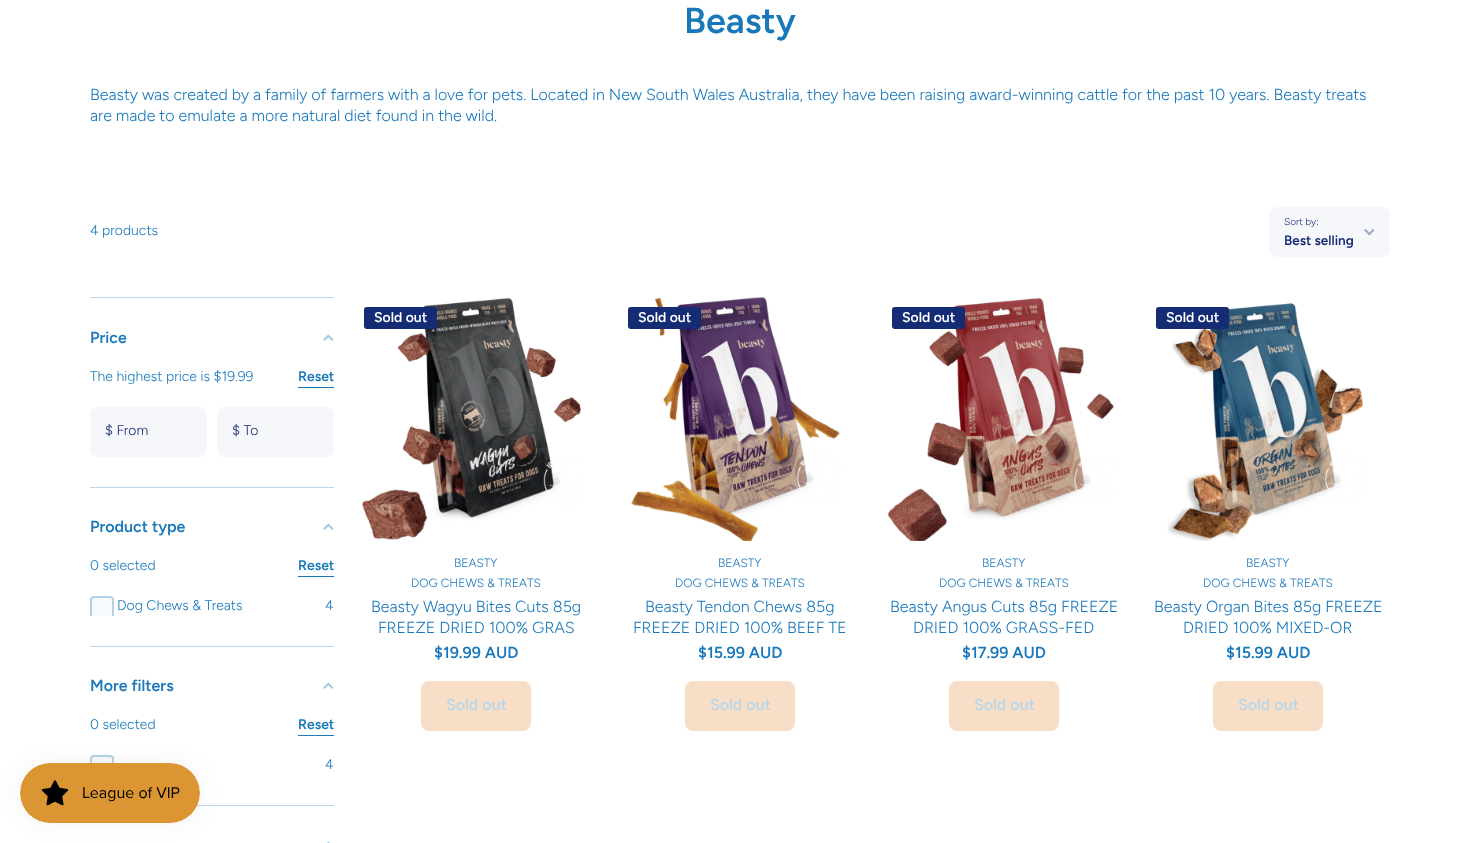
<!DOCTYPE html>
<meta charset="utf-8">
<style>body { margin: 0 } canvas { display: block }</style>
<canvas id="canvas" width="1480" height="843"></canvas>
<script type="module">
  const canvas = document.getElementById("canvas");
  const g = canvas.getContext("2d");
  g.miterLimit = 4;
  g.fontKerning = "normal";
  function drawText(s, x, y, [font, color]) {
    g.font = font;
    g.fillStyle = color;
    g.fillText(s, x, y);
  }
  function fillBox(x, y, w, h, color) {
    g.fillStyle = color;
    g.fillRect(x, y, w, h);
  }
  function fillRounded(x, y, w, h, r, color) {
    g.fillStyle = color;
    g.beginPath();
    g.roundRect(x, y, w, h, r);
    g.fill();
  }
  async function drawPicture(src, x, y, w, h) {
    const img = new Image();
    img.src = src;
    await img.decode();
    g.drawImage(img, x, y, w, h);
  }

  const s1 = ["600 36px Figtree", "#1878B9"];
  const s2 = ["300 16px Figtree", "#1878B9"];
  const s3 = ["300 14px Figtree", "#1878B9"];
  const s4 = ["300 10px Figtree", "#142C73"];
  const s5 = ["600 13.5px Figtree", "#142C73"];
  const s6 = ["600 16px Figtree", "#1878B9"];
  const s7 = ["600 14px Figtree", "#1878B9"];
  const s8 = ["300 14px Figtree", "#142C73"];
  const s9 = ["600 14px Figtree", "#FFFFFF"];
  const s10 = ["300 12px Figtree", "#1878B9"];
  const s11 = ["600 16px Figtree", "#BAD7EA"];

  fillBox(0, 0, 1480, 843, "#FFFFFF");
  drawText("Beasty", 684, 33, s1);
  drawText("Beasty was created by a family of farmers with a love for pets. Located in New South Wales Australia, they have been raising award-winning cattle for the past 10 years. Beasty treats", 90, 100, s2);
  drawText("are made to emulate a more natural diet found in the wild.", 90, 121, s2);
  drawText("4 products", 90, 235, s3);
  fillRounded(1269, 207, 121, 50, 8, "#F6F7FA");
  drawText("Sort by:", 1284, 225, s4);
  await drawPicture("pic1.png", 1364, 229, 11, 7);
  drawText("Best selling", 1284, 245, s5);
  fillBox(90, 297, 244, 1, "#BAD7EA");
  drawText("Price", 90, 343, s6);
  await drawPicture("pic2.png", 323, 334, 11, 7);
  drawText("The highest price is $19.99", 90, 381, s3);
  drawText("Reset", 298, 381, s7);
  fillBox(298, 387, 36, 1, "#1878B9");
  fillRounded(90, 407, 117, 50, 8, "#F6F7FA");
  drawText("$ From", 105, 435, s8);
  fillRounded(217, 407, 117, 50, 8, "#F6F7FA");
  drawText("$ To", 232, 435, s8);
  fillBox(90, 487, 244, 1, "#BAD7EA");
  drawText("Product type", 90, 532, s6);
  await drawPicture("pic2.png", 323, 523, 11, 7);
  drawText("0 selected", 90, 570, s3);
  drawText("Reset", 298, 570, s7);
  fillBox(298, 576, 36, 1, "#1878B9");
  g.fillStyle = "#F6FAFC";
  g.beginPath();
  g.roundRect(90, 596, 24, 20, [4, 4, 0, 0]);
  g.fill();
  g.save();
  g.beginPath();
  g.rect(90, 557, 244, 59);
  g.clip();
  g.beginPath();
  g.roundRect(91, 597, 22, 22, 3);
  g.strokeStyle = "rgba(24, 120, 185, 0.3)";
  g.lineWidth = 2;
  g.stroke();
  g.restore();
  drawText("Dog Chews & Treats", 117, 610, s3);
  drawText("4", 325, 610, s3);
  fillBox(90, 646, 244, 1, "#BAD7EA");
  drawText("More filters", 90, 691, s6);
  await drawPicture("pic2.png", 323, 682, 11, 7);
  drawText("0 selected", 90, 729, s3);
  drawText("Reset", 298, 729, s7);
  fillBox(298, 735, 36, 1, "#1878B9");
  g.fillStyle = "#F6FAFC";
  g.beginPath();
  g.roundRect(90, 755, 24, 20, [4, 4, 0, 0]);
  g.fill();
  g.beginPath();
  g.roundRect(91, 756, 22, 22, 3);
  g.strokeStyle = "rgba(24, 120, 185, 0.3)";
  g.lineWidth = 2;
  g.stroke();
  drawText("4", 325, 769, s3);
  fillBox(197, 805, 137, 1, "#BAD7EA");
  await drawPicture("pic3.png", 327, 841, 3, 2);
  await drawPicture("pic4.png", 362, 297, 219, 243);
  fillRounded(364, 307, 73, 22, 3, "#142C73");
  drawText("Sold out", 374, 322, s9);
  drawText("BEASTY", 454, 567, s10);
  drawText("DOG CHEWS & TREATS", 411, 587, s10);
  drawText("Beasty Wagyu Bites Cuts 85g", 371, 612, s2);
  drawText("FREEZE DRIED 100% GRAS", 378, 633, s2);
  drawText("$19.99 AUD", 434, 658, s6);
  fillRounded(421, 681, 110, 50, 8, "#F8DEC6");
  drawText("Sold out", 446, 710, s11);
  await drawPicture("pic5.png", 631, 297, 211, 244);
  fillRounded(628, 307, 73, 22, 3, "#142C73");
  drawText("Sold out", 638, 322, s9);
  drawText("BEASTY", 718, 567, s10);
  drawText("DOG CHEWS & TREATS", 675, 587, s10);
  drawText("Beasty Tendon Chews 85g", 645, 612, s2);
  drawText("FREEZE DRIED 100% BEEF TE", 633, 633, s2);
  drawText("$15.99 AUD", 698, 658, s6);
  fillRounded(685, 681, 110, 50, 8, "#F8DEC6");
  drawText("Sold out", 710, 710, s11);
  await drawPicture("pic6.png", 887, 297, 232, 244);
  fillRounded(892, 307, 73, 22, 3, "#142C73");
  drawText("Sold out", 902, 322, s9);
  drawText("BEASTY", 982, 567, s10);
  drawText("DOG CHEWS & TREATS", 939, 587, s10);
  drawText("Beasty Angus Cuts 85g FREEZE", 890, 612, s2);
  drawText("DRIED 100% GRASS-FED", 913, 633, s2);
  drawText("$17.99 AUD", 962, 658, s6);
  fillRounded(949, 681, 110, 50, 8, "#F8DEC6");
  drawText("Sold out", 974, 710, s11);
  await drawPicture("pic7.png", 1167, 303, 202, 238);
  fillRounded(1156, 307, 73, 22, 3, "#142C73");
  drawText("Sold out", 1166, 322, s9);
  drawText("BEASTY", 1246, 567, s10);
  drawText("DOG CHEWS & TREATS", 1203, 587, s10);
  drawText("Beasty Organ Bites 85g FREEZE", 1154, 612, s2);
  drawText("DRIED 100% MIXED-OR", 1183, 633, s2);
  drawText("$15.99 AUD", 1226, 658, s6);
  fillRounded(1213, 681, 110, 50, 8, "#F8DEC6");
  drawText("Sold out", 1238, 710, s11);
  g.fillStyle = "rgba(0, 0, 0, 0.05)";
  g.filter = "blur(12.5px)";
  g.beginPath();
  g.roundRect(20, 763, 180, 60, 30);
  g.fill();
  g.filter = "none";
  await drawPicture("pic8.png", 20, 763, 180, 60);
</script>
